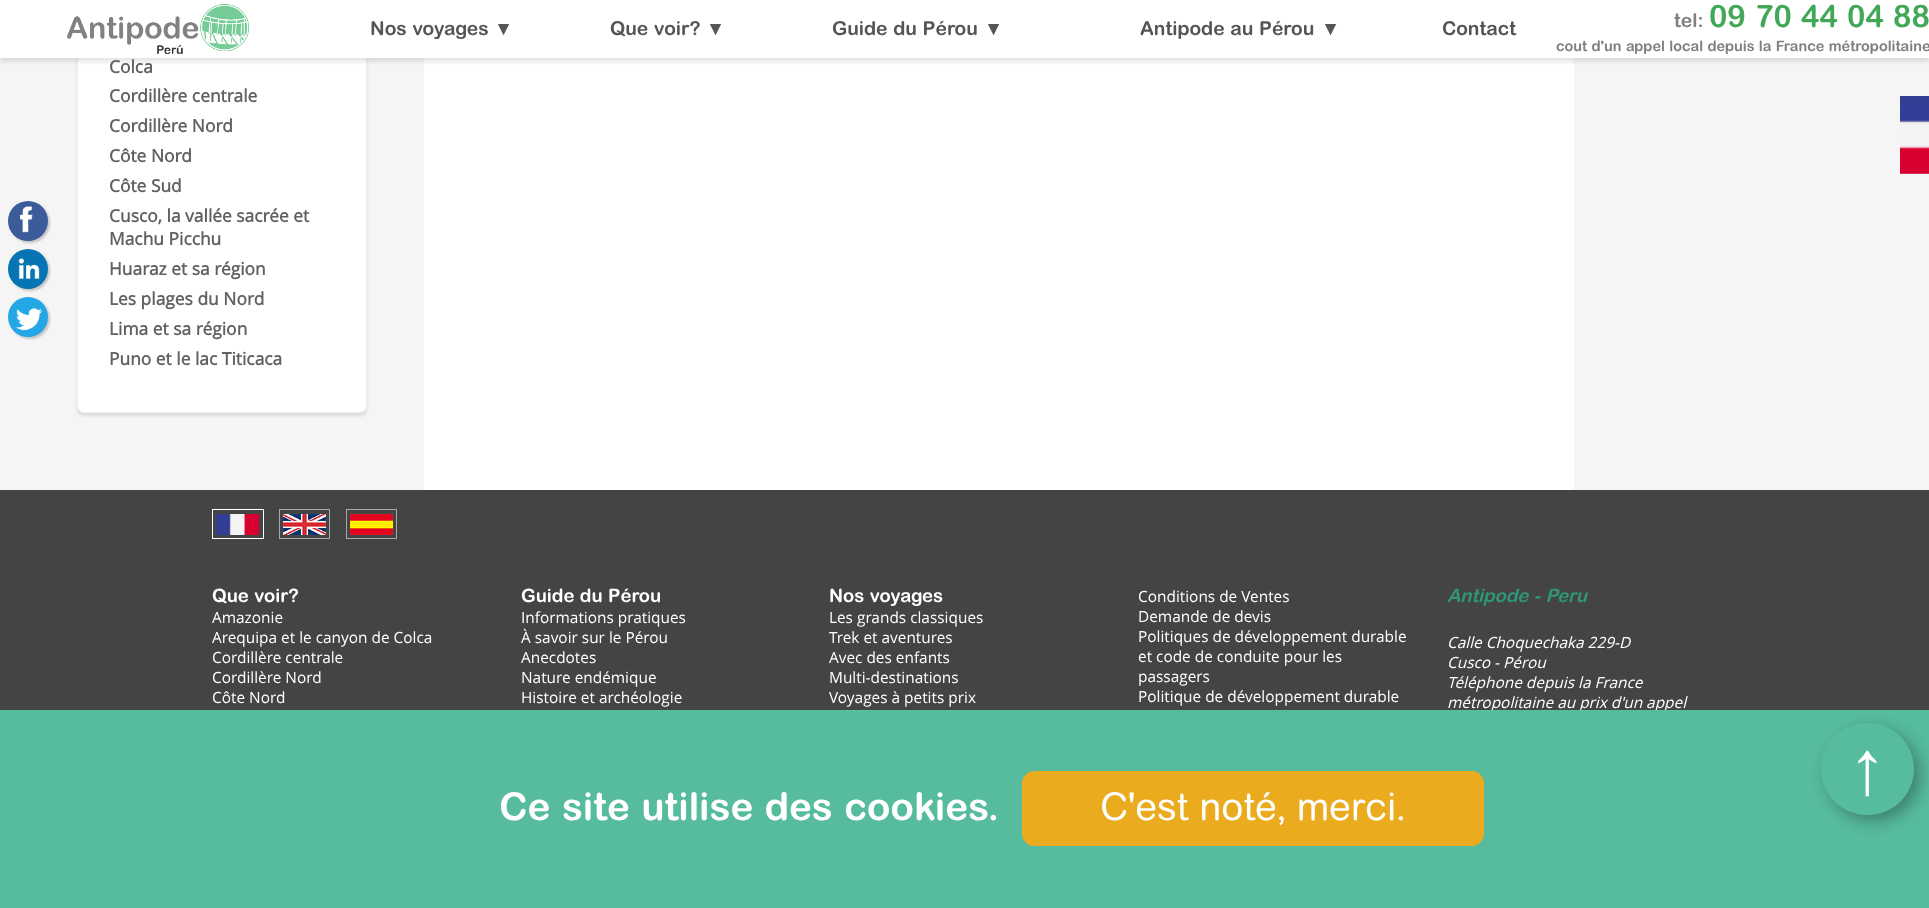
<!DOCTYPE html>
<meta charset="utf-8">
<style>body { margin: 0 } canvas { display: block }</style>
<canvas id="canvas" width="1929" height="908"></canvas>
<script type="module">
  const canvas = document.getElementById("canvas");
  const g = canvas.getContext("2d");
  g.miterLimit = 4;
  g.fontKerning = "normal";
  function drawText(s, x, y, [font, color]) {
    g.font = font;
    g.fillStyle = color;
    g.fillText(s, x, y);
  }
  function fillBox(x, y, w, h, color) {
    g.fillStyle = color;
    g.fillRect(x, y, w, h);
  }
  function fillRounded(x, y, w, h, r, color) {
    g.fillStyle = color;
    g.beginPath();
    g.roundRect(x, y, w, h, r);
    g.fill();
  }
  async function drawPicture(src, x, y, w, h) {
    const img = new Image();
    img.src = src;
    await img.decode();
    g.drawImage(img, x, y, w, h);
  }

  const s1 = ["bold 19.25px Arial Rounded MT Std", "#555555"];
  const s2 = ["19.25px Liberation Sans", "#555555"];
  const s3 = ["bold 19.25px Arial Rounded MT Std", "#808080"];
  const s4 = ["bold 31px Arial Rounded MT Std", "#42A857"];
  const s5 = ["bold 14.5px Arial Rounded MT Std", "#808080"];
  const s6 = ["bold 17.4px Open Sans", "#616161"];
  const s7 = ["bold 18.5px Arial Rounded MT Std", "#FFFFFF"];
  const s8 = ["15.4px Open Sans", "#FFFFFF"];
  const s9 = ["italic bold 18.5px Arial Rounded MT Std", "#2D9777"];
  const s10 = ["italic 15.4px Open Sans", "#FFFFFF"];
  const s11 = ["77px Liberation Sans", "#FFFFFF"];
  const s12 = ["bold 38.6px Arial Rounded MT Std", "#FFFFFF"];
  const s13 = ["500 38.6px Arial Rounded MT Std", "#FFFFFF"];

  fillBox(0, 0, 1929, 908, "#FFFFFF");
  fillBox(0, 58, 424, 432, "#F5F5F5");
  g.fillStyle = "rgba(0, 0, 0, 0.1)";
  g.filter = "blur(1.5px)";
  g.beginPath();
  g.roundRect(77, -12, 290, 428, 7);
  g.fill();
  g.filter = "none";
  g.fillStyle = "#FFFFFF";
  g.beginPath();
  g.roundRect(77.5, -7.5, 289, 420, 6.5);
  g.fill();
  g.strokeStyle = "#F0F0F0";
  g.stroke();
  fillBox(1574, 58, 355, 432, "#F5F5F5");
  g.fillStyle = "rgba(0, 0, 0, 0.1)";
  g.filter = "blur(2px)";
  g.beginPath();
  g.rect(0, 4, 1929, 58);
  g.fill();
  g.filter = "none";
  fillBox(0, 0, 1929, 58, "#FFFFFF");
  await drawPicture("pic1.png", 67, 3, 182, 51);
  drawText("Nos voyages", 370, 35, s1);
  drawText("▼", 494, 35, s2);
  drawText("Que voir?", 610, 35, s1);
  drawText("▼", 706, 35, s2);
  drawText("Guide du Pérou", 832, 35, s1);
  drawText("▼", 984, 35, s2);
  drawText("Antipode au Pérou", 1140, 35, s1);
  drawText("▼", 1321, 35, s2);
  drawText("Contact", 1442, 35, s1);
  drawText("tel:", 1674, 27, s3);
  drawText("09 70 44 04 88", 1709, 27, s4);
  drawText("cout d'un appel local depuis la France métropolitaine", 1556, 51, s5);
  await drawPicture("pic2.png", 1900, 96, 29, 78);
  g.fillStyle = "rgba(0, 0, 0, 0.2)";
  g.filter = "blur(1px)";
  g.beginPath();
  g.roundRect(10, 203, 40, 40, 20);
  g.fill();
  g.filter = "none";
  g.fillStyle = "#3C5B9B";
  g.beginPath();
  g.arc(28, 221, 20, 0, Math.PI * 2);
  g.fill();
  await drawPicture("pic3.png", 20, 206, 13, 27);
  g.fillStyle = "rgba(0, 0, 0, 0.2)";
  g.filter = "blur(1px)";
  g.beginPath();
  g.roundRect(10, 251, 40, 40, 20);
  g.fill();
  g.filter = "none";
  g.fillStyle = "#0774B3";
  g.beginPath();
  g.arc(28, 269, 20, 0, Math.PI * 2);
  g.fill();
  await drawPicture("pic4.png", 18, 258, 22, 21);
  g.fillStyle = "rgba(0, 0, 0, 0.2)";
  g.filter = "blur(1px)";
  g.beginPath();
  g.roundRect(10, 299, 40, 40, 20);
  g.fill();
  g.filter = "none";
  g.fillStyle = "#23A7E5";
  g.beginPath();
  g.arc(28, 317, 20, 0, Math.PI * 2);
  g.fill();
  await drawPicture("pic5.png", 15, 308, 28, 23);
  drawText("Colca", 109, 73, s6);
  drawText("Cordillère centrale", 109, 102, s6);
  drawText("Cordillère Nord", 109, 132, s6);
  drawText("Côte Nord", 109, 162, s6);
  drawText("Côte Sud", 109, 192, s6);
  drawText("Cusco, la vallée sacrée et", 109, 222, s6);
  drawText("Machu Picchu", 109, 245, s6);
  drawText("Huaraz et sa région", 109, 275, s6);
  drawText("Les plages du Nord", 109, 305, s6);
  drawText("Lima et sa région", 109, 335, s6);
  drawText("Puno et le lac Titicaca", 109, 365, s6);
  fillBox(0, 490, 1929, 220, "#444444");
  g.strokeStyle = "#FFFFFF";
  g.strokeRect(212.5, 509.5, 51, 29);
  await drawPicture("pic6.png", 216, 514, 43, 21);
  g.strokeStyle = "#A8A8A8";
  g.strokeRect(279.5, 509.5, 50, 29);
  await drawPicture("pic7.png", 283, 514, 43, 21);
  g.strokeRect(346.5, 509.5, 50, 29);
  await drawPicture("pic8.png", 350, 514, 43, 21);
  drawText("Que voir?", 212, 602, s7);
  drawText("Amazonie", 212, 623, s8);
  drawText("Arequipa et le canyon de Colca", 212, 643, s8);
  drawText("Cordillère centrale", 212, 663, s8);
  drawText("Cordillère Nord", 212, 683, s8);
  drawText("Côte Nord", 212, 703, s8);
  drawText("Guide du Pérou", 521, 602, s7);
  drawText("Informations pratiques", 521, 623, s8);
  drawText("À savoir sur le Pérou", 521, 643, s8);
  drawText("Anecdotes", 521, 663, s8);
  drawText("Nature endémique", 521, 683, s8);
  drawText("Histoire et archéologie", 521, 703, s8);
  drawText("Nos voyages", 829, 602, s7);
  drawText("Les grands classiques", 829, 623, s8);
  drawText("Trek et aventures", 829, 643, s8);
  drawText("Avec des enfants", 829, 663, s8);
  drawText("Multi-destinations", 829, 683, s8);
  drawText("Voyages à petits prix", 829, 703, s8);
  drawText("Conditions de Ventes", 1138, 602, s8);
  drawText("Demande de devis", 1138, 622, s8);
  drawText("Politiques de développement durable", 1138, 642, s8);
  drawText("et code de conduite pour les", 1138, 662, s8);
  drawText("passagers", 1138, 682, s8);
  drawText("Politique de développement durable", 1138, 702, s8);
  drawText("Antipode - Peru", 1447, 602, s9);
  drawText("Calle Choquechaka 229-D", 1447, 648, s10);
  drawText("Cusco - Pérou", 1447, 668, s10);
  drawText("Téléphone depuis la France", 1447, 688, s10);
  drawText("métropolitaine au prix d'un appel", 1447, 708, s10);
  fillBox(0, 710, 1929, 198, "#57BB9D");
  g.fillStyle = "rgba(0, 0, 0, 0.3)";
  g.filter = "blur(7.5px)";
  g.beginPath();
  g.roundRect(1827, 729, 93, 92, 46);
  g.fill();
  g.filter = "none";
  fillRounded(1821, 723, 93, 92, 46, "#57BB9D");
  drawText("↑", 1848, 794, s11);
  drawText("Ce site utilise des cookies.", 499, 820, s12);
  g.fillStyle = "#EAAC1E";
  g.beginPath();
  g.roundRect(1022.5, 771.5, 461, 74, 11.5);
  g.fill();
  g.strokeStyle = "#EAAC1E";
  g.stroke();
  drawText("C'est noté, merci.", 1100, 820, s13);
</script>
